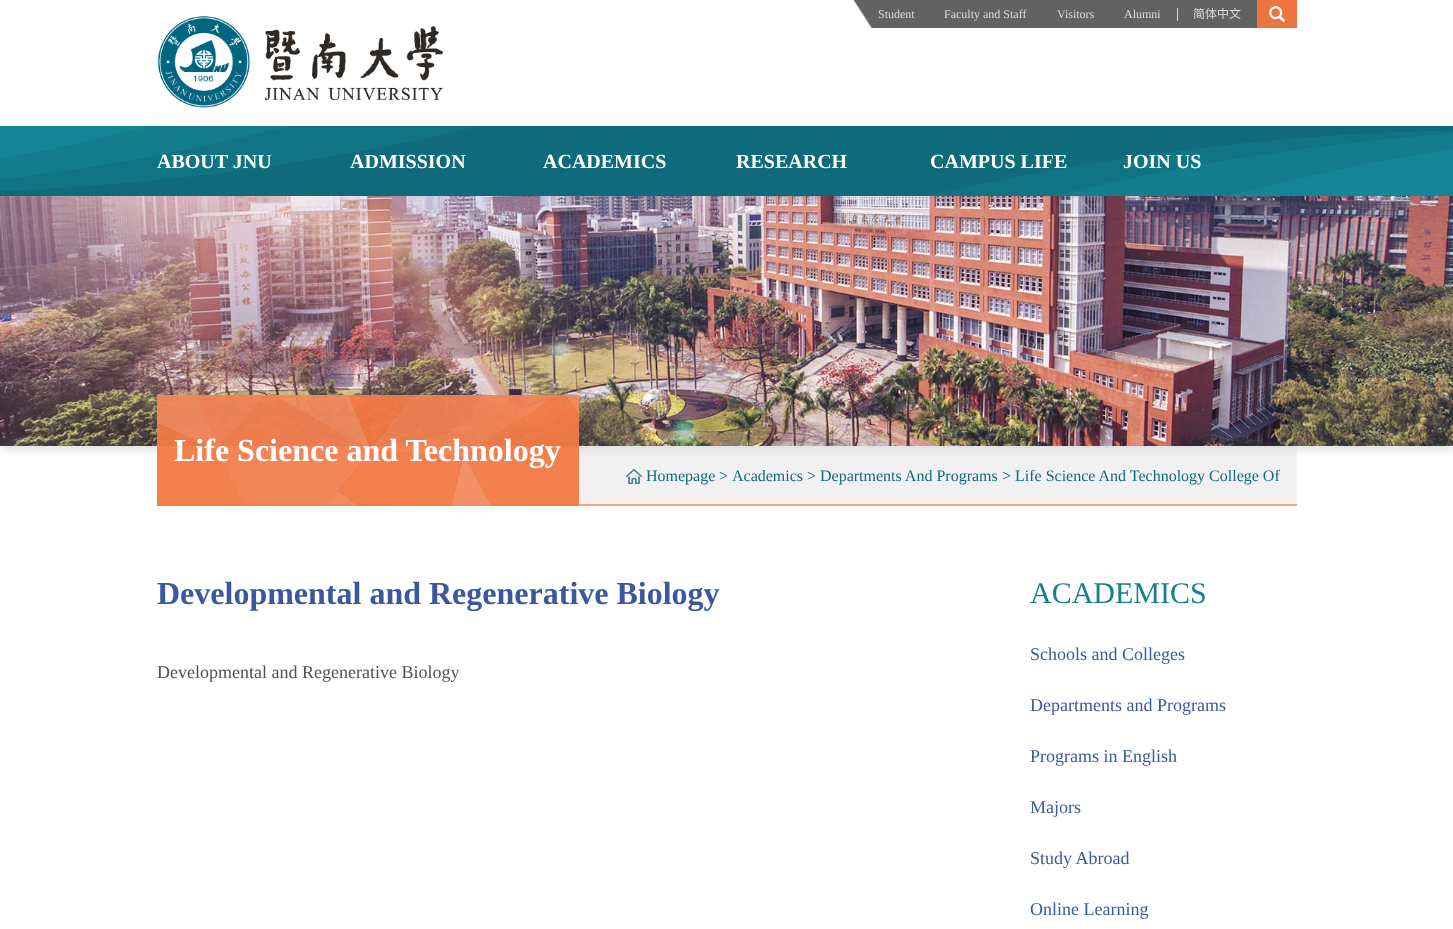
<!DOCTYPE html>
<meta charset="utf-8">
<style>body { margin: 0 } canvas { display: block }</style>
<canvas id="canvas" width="1453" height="929"></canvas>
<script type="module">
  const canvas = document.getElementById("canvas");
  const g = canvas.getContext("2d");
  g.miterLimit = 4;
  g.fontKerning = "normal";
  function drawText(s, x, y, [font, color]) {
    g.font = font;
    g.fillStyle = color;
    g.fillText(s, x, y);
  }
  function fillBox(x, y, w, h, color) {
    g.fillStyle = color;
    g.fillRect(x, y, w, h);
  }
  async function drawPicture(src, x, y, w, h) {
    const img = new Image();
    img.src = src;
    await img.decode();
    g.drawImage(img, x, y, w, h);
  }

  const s1 = ["12px Liberation Serif", "#DBDBDB"];
  const s2 = ["14px Liberation Serif", "#FFFFFF"];
  const s3 = ["12px Noto Sans CJK SC", "#DBDBDB"];
  const s4 = ["bold 20px Liberation Serif", "#FFFFFF"];
  const s5 = ["bold 32px Liberation Serif", "#FFFFFF"];
  const s6 = ["16px Liberation Serif", "#0F6A7B"];
  const s7 = ["bold 32px Liberation Serif", "#3B579D"];
  const s8 = ["18px Liberation Serif", "#505050"];
  const s9 = ["30px Liberation Serif", "#167E91"];
  const s10 = ["18px Liberation Serif", "#3B579D"];

  fillBox(0, 0, 1453, 929, "#FFFFFF");
  await drawPicture("pic1.png", 853, 0, 404, 28);
  drawText("Student", 878, 18, s1);
  drawText("Faculty and Staff", 944, 18, s1);
  drawText("Visitors", 1057, 18, s1);
  drawText("Alumni", 1124, 18, s1);
  drawText("|", 1176, 18, s2);
  drawText("简体中文", 1193, 18, s3);
  fillBox(1257, 0, 40, 28, "#ED733F");
  await drawPicture("pic2.png", 1269, 6, 17, 17);
  await drawPicture("pic3.png", 157, 16, 287, 92);
  g.fillStyle = "#DBDBDB";
  g.filter = "blur(5px)";
  g.beginPath();
  g.rect(0, 199, 1453, 250);
  g.fill();
  g.filter = "none";
  await drawPicture("pic4.png", 0, 126, 1453, 70);
  drawText("ABOUT JNU", 157, 168, s4);
  drawText("ADMISSION", 350, 168, s4);
  drawText("ACADEMICS", 543, 168, s4);
  drawText("RESEARCH", 736, 168, s4);
  drawText("CAMPUS LIFE", 930, 168, s4);
  drawText("JOIN US", 1123, 168, s4);
  await drawPicture("pic5.png", 0, 196, 1453, 250);
  fillBox(157, 446, 1140, 58, "rgba(220, 220, 220, 0.4)");
  fillBox(157, 504, 1140, 2, "#EFA586");
  await drawPicture("pic6.png", 157, 395, 422, 111);
  drawText("Life Science and Technology", 174, 461, s5);
  await drawPicture("pic7.png", 626, 469, 16, 15);
  drawText("Homepage", 646, 481, s6);
  drawText(">", 719, 481, s6);
  drawText("Academics", 732, 481, s6);
  drawText(">", 807, 481, s6);
  drawText("Departments And Programs", 820, 481, s6);
  drawText(">", 1002, 481, s6);
  drawText("Life Science And Technology College Of", 1015, 481, s6);
  drawText("Developmental and Regenerative Biology", 157, 604, s7);
  drawText("Developmental and Regenerative Biology", 157, 678, s8);
  drawText("ACADEMICS", 1030, 603, s9);
  drawText("Schools and Colleges", 1030, 660, s10);
  drawText("Departments and Programs", 1030, 711, s10);
  drawText("Programs in English", 1030, 762, s10);
  drawText("Majors", 1030, 813, s10);
  drawText("Study Abroad", 1030, 864, s10);
  drawText("Online Learning", 1030, 915, s10);
</script>
